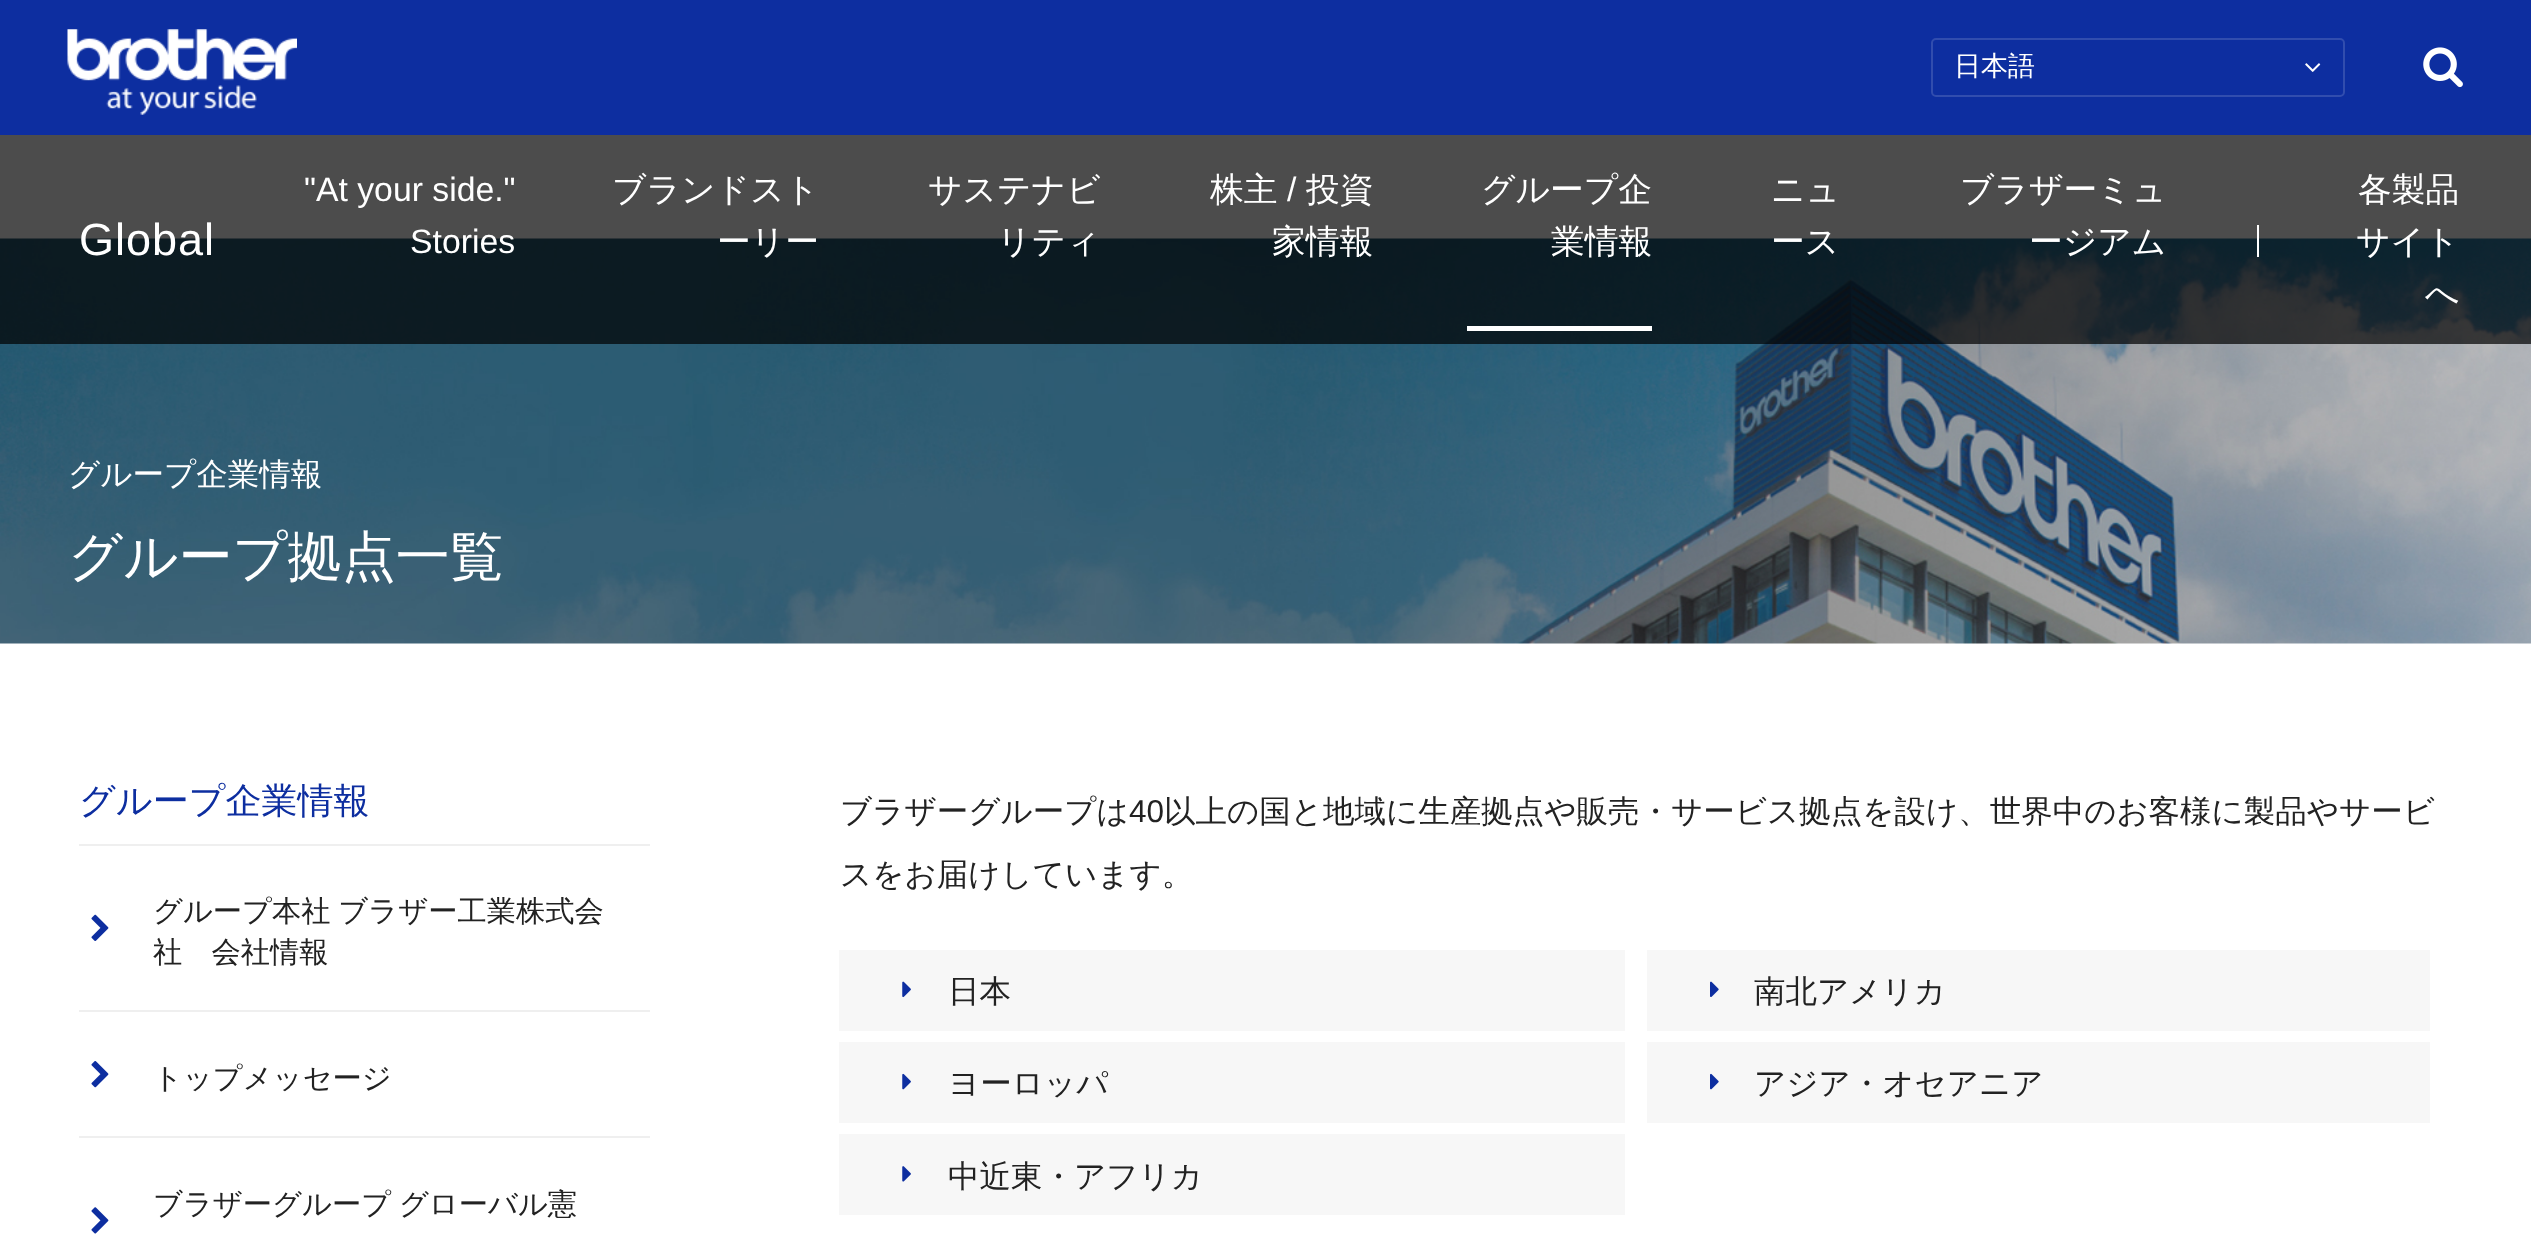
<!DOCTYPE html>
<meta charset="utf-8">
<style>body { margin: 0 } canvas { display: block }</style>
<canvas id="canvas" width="2531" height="1242"></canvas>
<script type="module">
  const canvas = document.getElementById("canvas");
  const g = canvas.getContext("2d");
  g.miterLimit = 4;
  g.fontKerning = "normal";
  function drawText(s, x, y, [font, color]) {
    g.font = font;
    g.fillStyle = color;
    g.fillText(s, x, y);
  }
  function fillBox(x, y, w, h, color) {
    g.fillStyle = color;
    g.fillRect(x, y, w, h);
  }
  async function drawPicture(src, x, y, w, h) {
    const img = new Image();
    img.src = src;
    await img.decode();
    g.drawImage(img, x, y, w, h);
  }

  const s1 = ["500 27px WenQuanYi Zen Hei", "#FFFFFF"];
  const s2 = ["45px Liberation Sans", "#FFFFFF"];
  const s3 = ["33.75px Liberation Sans", "#FFFFFF"];
  const s4 = ["500 33.75px WenQuanYi Zen Hei", "#FFFFFF"];
  const s5 = ["500 31.5px WenQuanYi Zen Hei", "#FFFFFF"];
  const s6 = ["500 54px WenQuanYi Zen Hei", "#FFFFFF"];
  const s7 = ["500 36px WenQuanYi Zen Hei", "#0D2EA0"];
  const s8 = ["500 29.25px WenQuanYi Zen Hei", "#222222"];
  const s9 = ["500 31.5px WenQuanYi Zen Hei", "#222222"];
  const s10 = ["31.5px Liberation Sans", "#222222"];

  fillBox(0, 0, 2531, 1242, "#FFFFFF");
  fillBox(0, 0, 2531, 135, "#0D2EA0");
  await drawPicture("pic1.png", 67, 29, 230, 86);
  await drawPicture("pic2.png", 2305, 63, 16, 9);
  g.beginPath();
  g.roundRect(1932, 39, 412, 57, 4);
  g.strokeStyle = "#314DAE";
  g.lineWidth = 2;
  g.stroke();
  drawText("日本語", 1954, 75, s1);
  await drawPicture("pic3.png", 2423, 47, 40, 41);
  await drawPicture("pic4.png", 0, 238, 2531, 406);
  fillBox(0, 135, 2531, 209, "rgba(0, 0, 0, 0.7)");
  g.letterSpacing = "1px";
  drawText("Global", 79, 255, s2);
  g.letterSpacing = "0px";
  drawText("\"At your side.\"", 304, 201, s3);
  drawText("Stories", 410, 253, s3);
  drawText("ブランドスト", 612, 201, s4);
  drawText("ーリー", 717, 253, s4);
  drawText("サステナビ", 928, 201, s4);
  drawText("リティ", 997, 253, s4);
  drawText("株主", 1210, 201, s4);
  drawText("/", 1287, 201, s3);
  drawText("投資", 1306, 201, s4);
  drawText("家情報", 1272, 253, s4);
  drawText("グループ企", 1481, 201, s4);
  drawText("業情報", 1551, 253, s4);
  fillBox(1467, 326, 185, 5, "#FFFFFF");
  drawText("ニュ", 1771, 201, s4);
  drawText("ース", 1771, 253, s4);
  drawText("ブラザーミュ", 1960, 201, s4);
  drawText("ージアム", 2029, 253, s4);
  fillBox(2257, 225, 2, 32, "#FFFFFF");
  drawText("各製品", 2358, 201, s4);
  drawText("サイト", 2356, 253, s4);
  drawText("へ", 2425, 305, s4);
  drawText("グループ企業情報", 68, 485, s5);
  drawText("グループ拠点一覧", 68, 575, s6);
  drawText("グループ企業情報", 79, 813, s7);
  fillBox(79, 844, 571, 2, "#EFEFEF");
  fillBox(79, 1010, 571, 2, "#EFEFEF");
  await drawPicture("pic5.png", 91, 914, 18, 27);
  g.wordSpacing = "-1px";
  drawText("グループ本社 ブラザー工業株式会", 153, 921, s8);
  g.wordSpacing = "0px";
  drawText("社　会社情報", 153, 962, s8);
  fillBox(79, 1136, 571, 2, "#EFEFEF");
  await drawPicture("pic6.png", 91, 1061, 18, 27);
  drawText("トップメッセージ", 153, 1088, s8);
  await drawPicture("pic7.png", 91, 1207, 18, 27);
  g.wordSpacing = "-1px";
  drawText("ブラザーグループ グローバル憲", 153, 1214, s8);
  g.wordSpacing = "0px";
  drawText("ブラザーグループは", 840, 822, s9);
  drawText("40", 1129, 822, s10);
  drawText("以上の国と地域に生産拠点や販売・サービス拠点を設け、世界中のお客様に製品やサービ", 1164, 822, s9);
  drawText("スをお届けしています。", 840, 885, s9);
  fillBox(839, 950, 786, 81, "#F7F7F7");
  await drawPicture("pic8.png", 902, 981, 9, 17);
  drawText("日本", 948, 1002, s9);
  fillBox(1647, 950, 783, 81, "#F7F7F7");
  await drawPicture("pic9.png", 1710, 981, 9, 16);
  drawText("南北アメリカ", 1754, 1002, s9);
  fillBox(839, 1042, 786, 81, "#F7F7F7");
  await drawPicture("pic10.png", 902, 1073, 9, 17);
  drawText("ヨーロッパ", 948, 1094, s9);
  fillBox(1647, 1042, 783, 81, "#F7F7F7");
  await drawPicture("pic11.png", 1710, 1073, 9, 17);
  drawText("アジア・オセアニア", 1754, 1094, s9);
  fillBox(839, 1134, 786, 81, "#F7F7F7");
  await drawPicture("pic12.png", 902, 1166, 9, 16);
  drawText("中近東・アフリカ", 948, 1187, s9);
</script>
